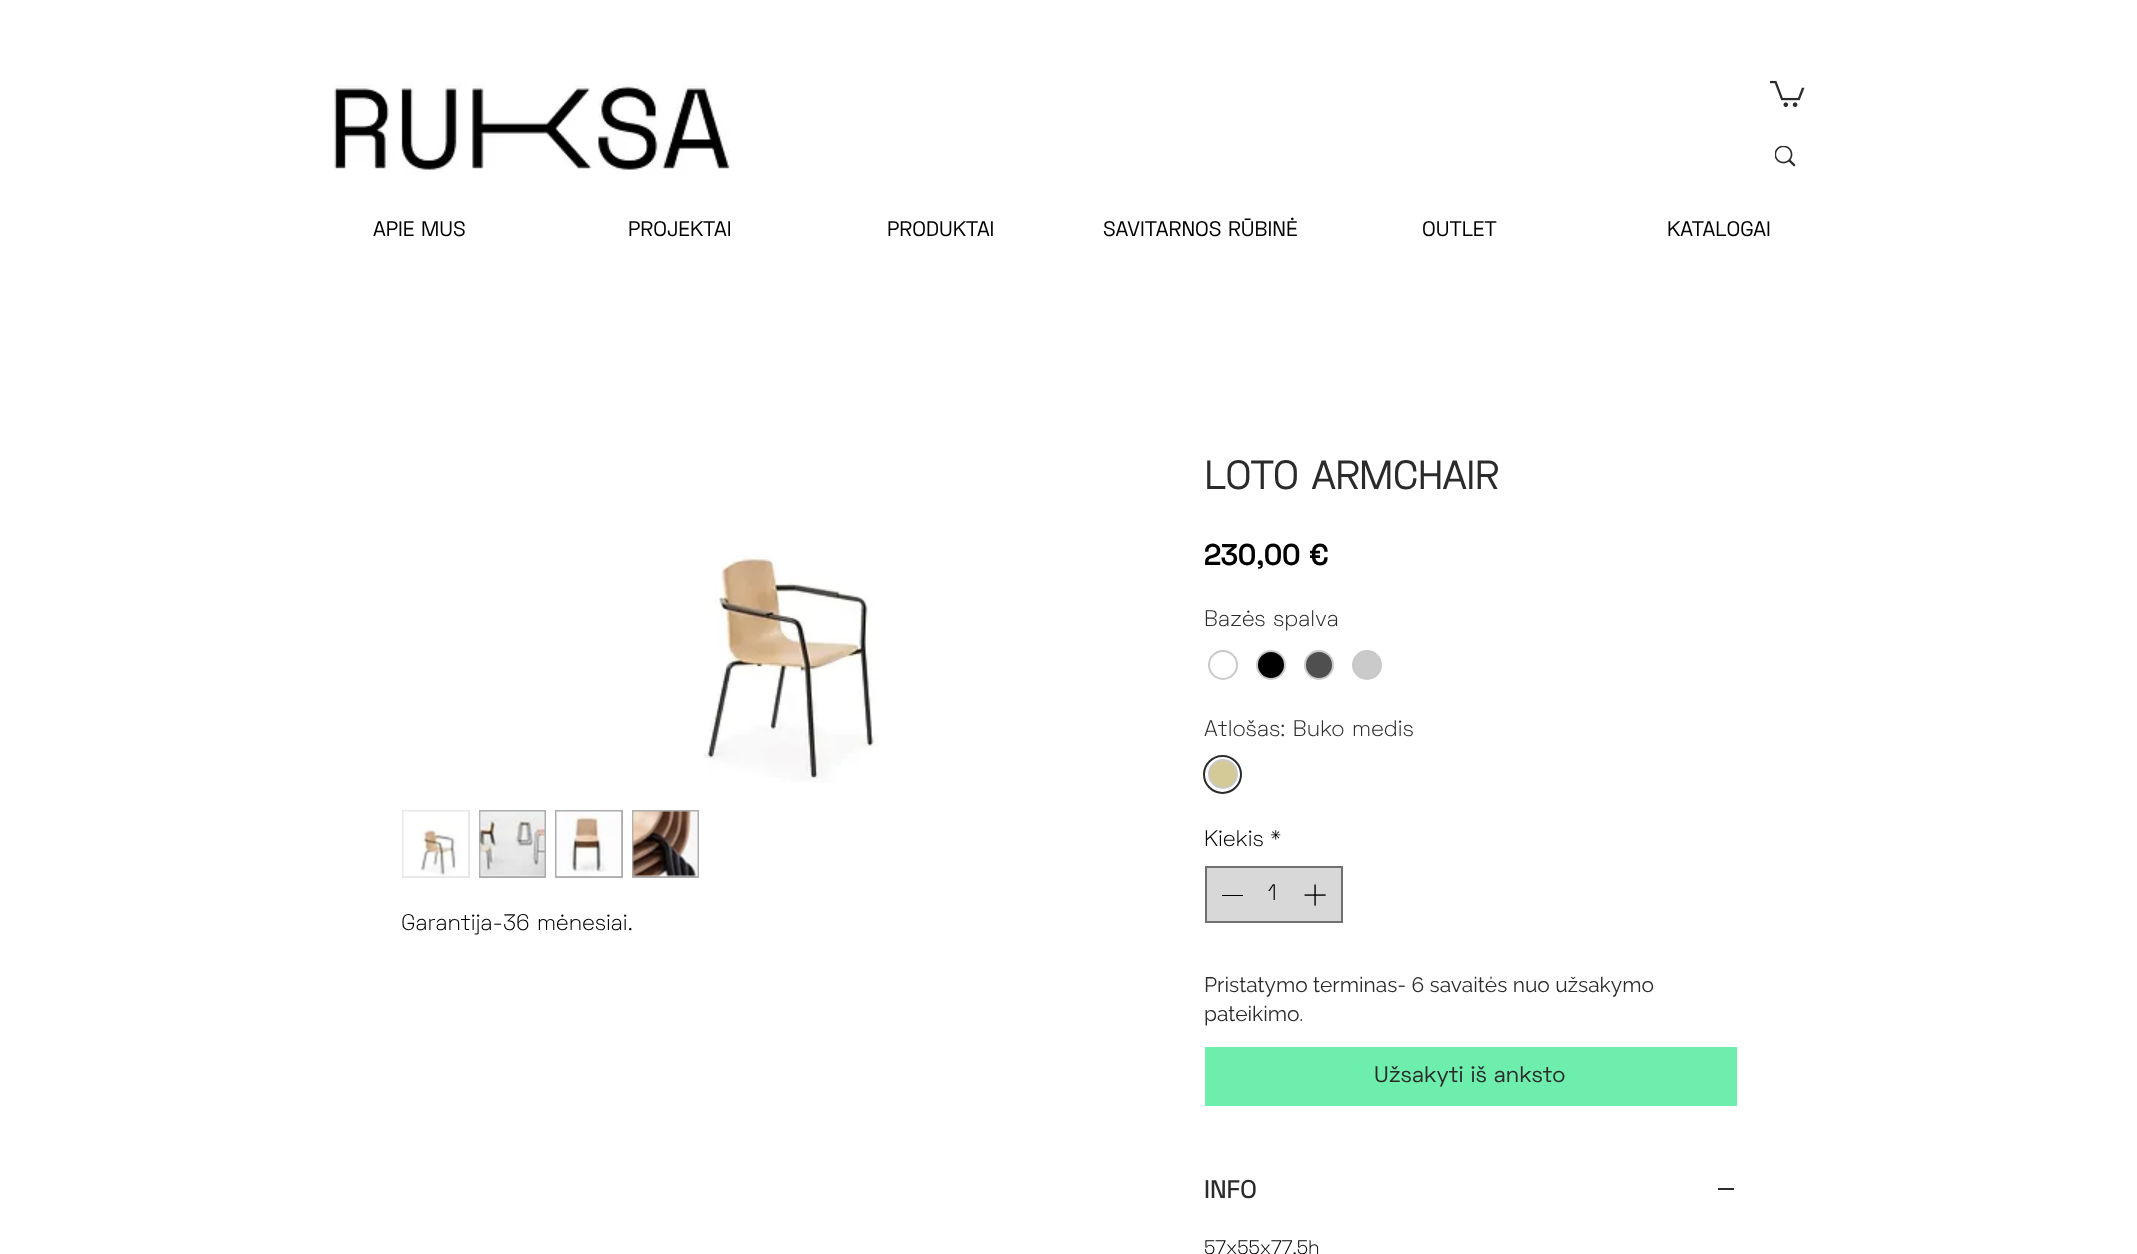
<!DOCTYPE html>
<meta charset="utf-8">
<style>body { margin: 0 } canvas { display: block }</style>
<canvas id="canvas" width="2137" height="1254"></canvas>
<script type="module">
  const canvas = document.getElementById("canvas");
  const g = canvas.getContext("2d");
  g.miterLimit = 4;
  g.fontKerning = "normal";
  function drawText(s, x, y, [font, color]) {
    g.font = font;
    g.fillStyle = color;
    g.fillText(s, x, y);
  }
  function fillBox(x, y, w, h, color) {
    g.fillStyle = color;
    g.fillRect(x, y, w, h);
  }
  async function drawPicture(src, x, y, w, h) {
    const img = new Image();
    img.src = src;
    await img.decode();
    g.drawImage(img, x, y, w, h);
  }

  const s1 = ["21px Space Grotesk", "#000000"];
  const s2 = ["300 22.5px Space Grotesk", "#000000"];
  const s3 = ["bold 39px Space Grotesk", "#2B2B2B"];
  const s4 = ["600 30px Space Grotesk", "#000000"];
  const s5 = ["300 22.5px Space Grotesk", "#2B2B2B"];
  const s6 = ["21px Raleway", "#2B2B2B"];
  const s7 = ["22.5px Space Grotesk", "#2B2B2B"];
  const s8 = ["500 25.5px Space Grotesk", "#2B2B2B"];
  const s9 = ["300 19.5px Space Grotesk", "#000000"];

  fillBox(0, 0, 2137, 1254, "#FFFFFF");
  await drawPicture("pic1.png", 305, 78, 448, 105);
  await drawPicture("pic2.png", 1770, 80, 35, 27);
  await drawPicture("pic3.png", 1775, 146, 21, 21);
  drawText("APIE MUS", 373, 236, s1);
  drawText("PROJEKTAI", 628, 236, s1);
  drawText("PRODUKTAI", 887, 236, s1);
  drawText("SAVITARNOS RŪBINĖ", 1103, 236, s1);
  drawText("OUTLET", 1422, 236, s1);
  drawText("KATALOGAI", 1667, 236, s1);
  await drawPicture("pic4.png", 703, 555, 175, 228);
  g.strokeStyle = "#E8E8E8";
  g.lineWidth = 2;
  g.strokeRect(403, 811, 66, 66);
  await drawPicture("pic5.png", 403, 811, 65, 65);
  g.strokeStyle = "#ADADAD";
  g.strokeRect(480, 811, 65, 66);
  await drawPicture("pic6.png", 479, 811, 66, 66);
  g.strokeRect(556, 811, 66, 66);
  await drawPicture("pic7.png", 556, 811, 66, 66);
  g.strokeRect(633, 811, 65, 66);
  await drawPicture("pic8.png", 632, 811, 66, 66);
  drawText("Garantija-36 mėnesiai.", 401, 930, s2);
  drawText("LOTO ARMCHAIR", 1204, 489, s3);
  drawText("230,00 €", 1204, 565, s4);
  drawText("Bazės spalva", 1204, 626, s5);
  g.beginPath();
  g.arc(1223, 665, 14, 0, Math.PI * 2);
  g.strokeStyle = "#C9C9C9";
  g.stroke();
  g.fillStyle = "#000000";
  g.beginPath();
  g.arc(1271, 665, 14, 0, Math.PI * 2);
  g.fill();
  g.stroke();
  g.fillStyle = "#4F4F4F";
  g.beginPath();
  g.arc(1319, 665, 14, 0, Math.PI * 2);
  g.fill();
  g.stroke();
  g.fillStyle = "#CACACA";
  g.beginPath();
  g.arc(1367, 665, 14, 0, Math.PI * 2);
  g.fill();
  g.stroke();
  drawText("Atlošas: Buko medis", 1204, 736, s5);
  g.beginPath();
  g.arc(1222.5, 774.5, 18.5, 0, Math.PI * 2);
  g.strokeStyle = "#2B2B2B";
  g.stroke();
  g.fillStyle = "#D4CA97";
  g.beginPath();
  g.arc(1223, 774, 14, 0, Math.PI * 2);
  g.fill();
  g.strokeStyle = "#C9C9C9";
  g.stroke();
  drawText("Kiekis", 1204, 846, s2);
  drawText("*", 1270, 846, s2);
  g.fillStyle = "#D8D8D8";
  g.beginPath();
  g.rect(1206, 867, 136, 55);
  g.fill();
  g.strokeStyle = "#707070";
  g.stroke();
  fillBox(1222, 895, 21, 1, "#000000");
  drawText("1", 1268, 900, s2);
  await drawPicture("pic9.png", 1304, 884, 22, 22);
  drawText("Pristatymo terminas- 6 savaitės nuo užsakymo", 1204, 992, s6);
  drawText("pateikimo.", 1204, 1021, s6);
  fillBox(1205, 1047, 532, 59, "#6EEEAC");
  drawText("Užsakyti iš anksto", 1374, 1082, s7);
  drawText("INFO", 1204, 1198, s8);
  fillBox(1718, 1188, 16, 2, "#2B2B2B");
  drawText("57x55x77.5h", 1204, 1254, s9);
</script>
